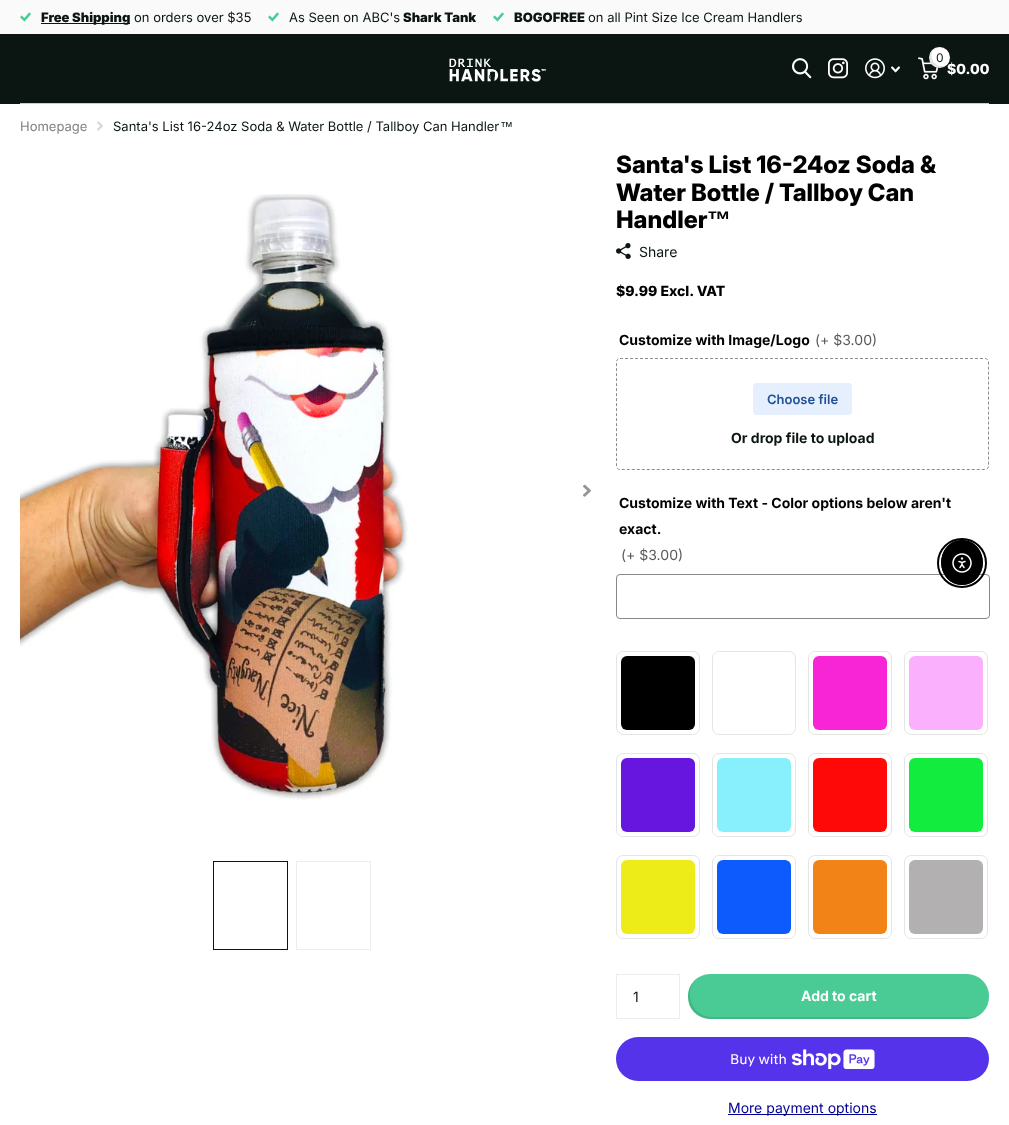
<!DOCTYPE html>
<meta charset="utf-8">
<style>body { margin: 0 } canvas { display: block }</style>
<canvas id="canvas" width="1009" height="1125"></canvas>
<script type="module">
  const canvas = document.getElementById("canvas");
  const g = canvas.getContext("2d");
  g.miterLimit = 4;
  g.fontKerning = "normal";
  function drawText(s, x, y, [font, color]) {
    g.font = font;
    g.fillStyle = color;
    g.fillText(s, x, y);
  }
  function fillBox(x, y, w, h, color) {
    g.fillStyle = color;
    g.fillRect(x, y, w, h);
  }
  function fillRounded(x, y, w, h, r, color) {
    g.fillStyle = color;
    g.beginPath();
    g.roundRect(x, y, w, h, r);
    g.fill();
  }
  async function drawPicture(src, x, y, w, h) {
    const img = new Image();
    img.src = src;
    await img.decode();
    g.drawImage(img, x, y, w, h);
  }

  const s1 = ["900 13px Inter", "#0B1613"];
  const s2 = ["13px Inter", "#0B1613"];
  const s3 = ["12px Inter", "#0B1613"];
  const s4 = ["800 14px 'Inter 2'", "#FFFFFF"];
  const s5 = ["13px Inter", "#7E8482"];
  const s6 = ["13px Liberation Sans", "#0B1613"];
  const s7 = ["800 24px Inter", "#000000"];
  const s8 = ["bold 24px Liberation Sans", "#000000"];
  const s9 = ["14px Inter", "#0B1613"];
  const s10 = ["800 14px 'Inter 2'", "#000000"];
  const s11 = ["bold 14px Inter", "#000000"];
  const s12 = ["14px Inter", "#5A5959"];
  const s13 = ["600 13px Inter", "#1F5199"];
  const s14 = ["bold 14px Inter", "#0B1613"];
  const s15 = ["bold 14px Inter", "#FFFFFF"];
  const s16 = ["14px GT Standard", "#FFFFFF"];
  const s17 = ["14px Inter", "#000096"];

  fillBox(0, 0, 1009, 1125, "#FFFFFF");
  fillBox(0, 0, 1009, 34, "#FAFAFA");
  await drawPicture("pic1.png", 20, 12, 11, 10);
  fillBox(41, 23, 89, 1, "#0B1613");
  drawText("Free Shipping", 41, 22, s1);
  drawText("on orders over $35", 134, 22, s2);
  await drawPicture("pic1.png", 268, 12, 11, 10);
  drawText("As Seen on ABC's", 289, 22, s2);
  drawText("Shark Tank", 403, 22, s1);
  await drawPicture("pic1.png", 493, 12, 11, 10);
  drawText("BOGOFREE", 514, 22, s1);
  drawText("on all Pint Size Ice Cream Handlers", 588, 22, s2);
  fillBox(0, 34, 1009, 70, "#0B1613");
  await drawPicture("pic2.png", 449, 58, 97, 24);
  await drawPicture("pic3.png", 792, 58, 20, 21);
  await drawPicture("pic4.png", 828, 58, 20, 21);
  await drawPicture("pic5.png", 865, 58, 20, 21);
  await drawPicture("pic6.png", 891, 66, 9, 7);
  await drawPicture("pic7.png", 918, 57, 21, 23);
  g.fillStyle = "#FFFFFF";
  g.beginPath();
  g.arc(939.5, 57.5, 10.5, 0, Math.PI * 2);
  g.fill();
  g.fillStyle = "rgba(0, 0, 0, 0.1)";
  g.beginPath();
  g.moveTo(947.5, 64.5);
  g.bezierCurveTo(938, 70.5, 926.5, 58, 934, 48.5);
  g.bezierCurveTo(928.5, 52.5, 927.5, 60, 932, 65);
  g.bezierCurveTo(936.5, 69, 943.5, 69, 947.5, 64.5);
  g.closePath();
  g.fill();
  drawText("0", 936, 62, s3);
  drawText("$0.00", 947, 74, s4);
  fillBox(20, 103, 969, 1, "#CACCCC");
  drawText("Homepage", 20, 131, s5);
  await drawPicture("pic8.png", 97, 121, 6, 10);
  drawText("Santa's List 16-24oz Soda & Water Bottle / Tallboy Can Handler", 113, 131, s2);
  drawText("™", 500, 131, s6);
  await drawPicture("pic9.png", 20, 194, 388, 606);
  await drawPicture("pic10.png", 583, 484, 8, 13);
  g.strokeStyle = "#000096";
  g.strokeRect(213.5, 861.5, 74, 88);
  g.strokeStyle = "#ECEDEC";
  g.strokeRect(296.5, 861.5, 74, 88);
  drawText("Santa's List 16-24oz Soda &", 616, 173, s7);
  drawText("Water Bottle / Tallboy Can", 616, 201, s7);
  drawText("Handler", 616, 228, s7);
  drawText("™", 707, 228, s8);
  await drawPicture("pic11.png", 616, 243, 15, 16);
  drawText("Share", 639, 257, s9);
  drawText("$9.99 Excl. VAT", 616, 296, s10);
  drawText("Customize with Image/Logo", 619, 345, s11);
  drawText("(+ $3.00)", 815, 345, s12);
  g.beginPath();
  g.moveTo(620, 358.5);
  g.lineTo(985, 358.5);
  g.bezierCurveTo(987, 358.5, 988.5, 360, 988.5, 362);
  g.lineTo(988.5, 466);
  g.bezierCurveTo(988.5, 468, 987, 469.5, 985, 469.5);
  g.lineTo(620, 469.5);
  g.bezierCurveTo(618, 469.5, 616.5, 468, 616.5, 466);
  g.lineTo(616.5, 362);
  g.bezierCurveTo(616.5, 360, 618, 358.5, 620, 358.5);
  g.closePath();
  g.strokeStyle = "#8C8C8C";
  g.setLineDash([3, 2]);
  g.stroke();
  fillRounded(753, 383, 99, 32, 4, "#E5EFFD");
  drawText("Choose file", 767, 404, s13);
  drawText("Or drop file to upload", 731, 443, s14);
  drawText("Customize with Text - Color options below aren't", 619, 508, s11);
  drawText("exact.", 619, 534, s11);
  drawText("(+ $3.00)", 621, 560, s12);
  g.beginPath();
  g.roundRect(616.5, 574.5, 373, 44, 3.5);
  g.strokeStyle = "#8A8787";
  g.setLineDash([]);
  g.stroke();
  g.beginPath();
  g.roundRect(616.5, 651.5, 83, 83, 6.5);
  g.strokeStyle = "#E5E5E5";
  g.stroke();
  fillRounded(621, 656, 74, 74, 6, "#000000");
  g.beginPath();
  g.roundRect(712.5, 651.5, 83, 83, 6.5);
  g.stroke();
  g.beginPath();
  g.roundRect(808.5, 651.5, 83, 83, 6.5);
  g.stroke();
  fillRounded(813, 656, 74, 74, 6, "#F725D6");
  g.beginPath();
  g.roundRect(904.5, 651.5, 83, 83, 6.5);
  g.stroke();
  fillRounded(909, 656, 74, 74, 6, "#FAB0FC");
  g.beginPath();
  g.roundRect(616.5, 753.5, 83, 83, 6.5);
  g.stroke();
  fillRounded(621, 758, 74, 74, 6, "#6616DF");
  g.beginPath();
  g.roundRect(712.5, 753.5, 83, 83, 6.5);
  g.stroke();
  fillRounded(717, 758, 74, 74, 6, "#87F0FC");
  g.beginPath();
  g.roundRect(808.5, 753.5, 83, 83, 6.5);
  g.stroke();
  fillRounded(813, 758, 74, 74, 6, "#FF0808");
  g.beginPath();
  g.roundRect(904.5, 753.5, 83, 83, 6.5);
  g.stroke();
  fillRounded(909, 758, 74, 74, 6, "#12EC3E");
  g.beginPath();
  g.roundRect(616.5, 855.5, 83, 83, 6.5);
  g.stroke();
  fillRounded(621, 860, 74, 74, 6, "#EDEC19");
  g.beginPath();
  g.roundRect(712.5, 855.5, 83, 83, 6.5);
  g.stroke();
  fillRounded(717, 860, 74, 74, 6, "#0D5AFD");
  g.beginPath();
  g.roundRect(808.5, 855.5, 83, 83, 6.5);
  g.stroke();
  fillRounded(813, 860, 74, 74, 6, "#F28417");
  g.beginPath();
  g.roundRect(904.5, 855.5, 83, 83, 6.5);
  g.stroke();
  fillRounded(909, 860, 74, 74, 6, "#B2B0B0");
  g.strokeStyle = "#ECEDEC";
  g.strokeRect(616.5, 974.5, 63, 44);
  drawText("1", 633, 1002, s9);
  fillRounded(688, 974, 301, 45, 22, "#4ACB95");
  g.fillStyle = "rgba(0, 0, 0, 0.1)";
  g.beginPath();
  g.moveTo(696, 979);
  g.bezierCurveTo(691, 983, 688, 989, 688, 996);
  g.lineTo(688, 997);
  g.bezierCurveTo(688, 1009, 698, 1019, 710, 1019);
  g.lineTo(967, 1019);
  g.bezierCurveTo(974, 1019, 980, 1016, 984, 1011);
  g.bezierCurveTo(980, 1015, 975, 1017, 969, 1017);
  g.lineTo(712, 1017);
  g.bezierCurveTo(700, 1017, 690, 1007, 690, 995);
  g.lineTo(690, 994);
  g.bezierCurveTo(690, 988, 692, 983, 696, 979);
  g.closePath();
  g.fill();
  drawText("Add to cart", 801, 1001, s15);
  fillRounded(616, 1037, 373, 44, 22, "#5433EB");
  drawText("Buy with", 730, 1064, s16);
  await drawPicture("pic12.png", 791, 1049, 84, 20);
  fillBox(728, 1114, 149, 1, "#000096");
  drawText("More payment options", 728, 1113, s17);
  g.beginPath();
  g.arc(962, 563, 24, 0, Math.PI * 2);
  g.strokeStyle = "#000000";
  g.lineWidth = 2;
  g.stroke();
  g.fillStyle = "#000000";
  g.beginPath();
  g.ellipse(962, 562.5, 21, 22.5, 0, 0, Math.PI * 2);
  g.fill();
  g.beginPath();
  g.moveTo(962, 540.5);
  g.bezierCurveTo(989, 540.5, 989, 584.5, 962, 584.5);
  g.bezierCurveTo(935, 584.5, 935, 540.5, 962, 540.5);
  g.closePath();
  g.lineWidth = 1;
  g.stroke();
  await drawPicture("pic13.png", 952, 553, 20, 20);
</script>
